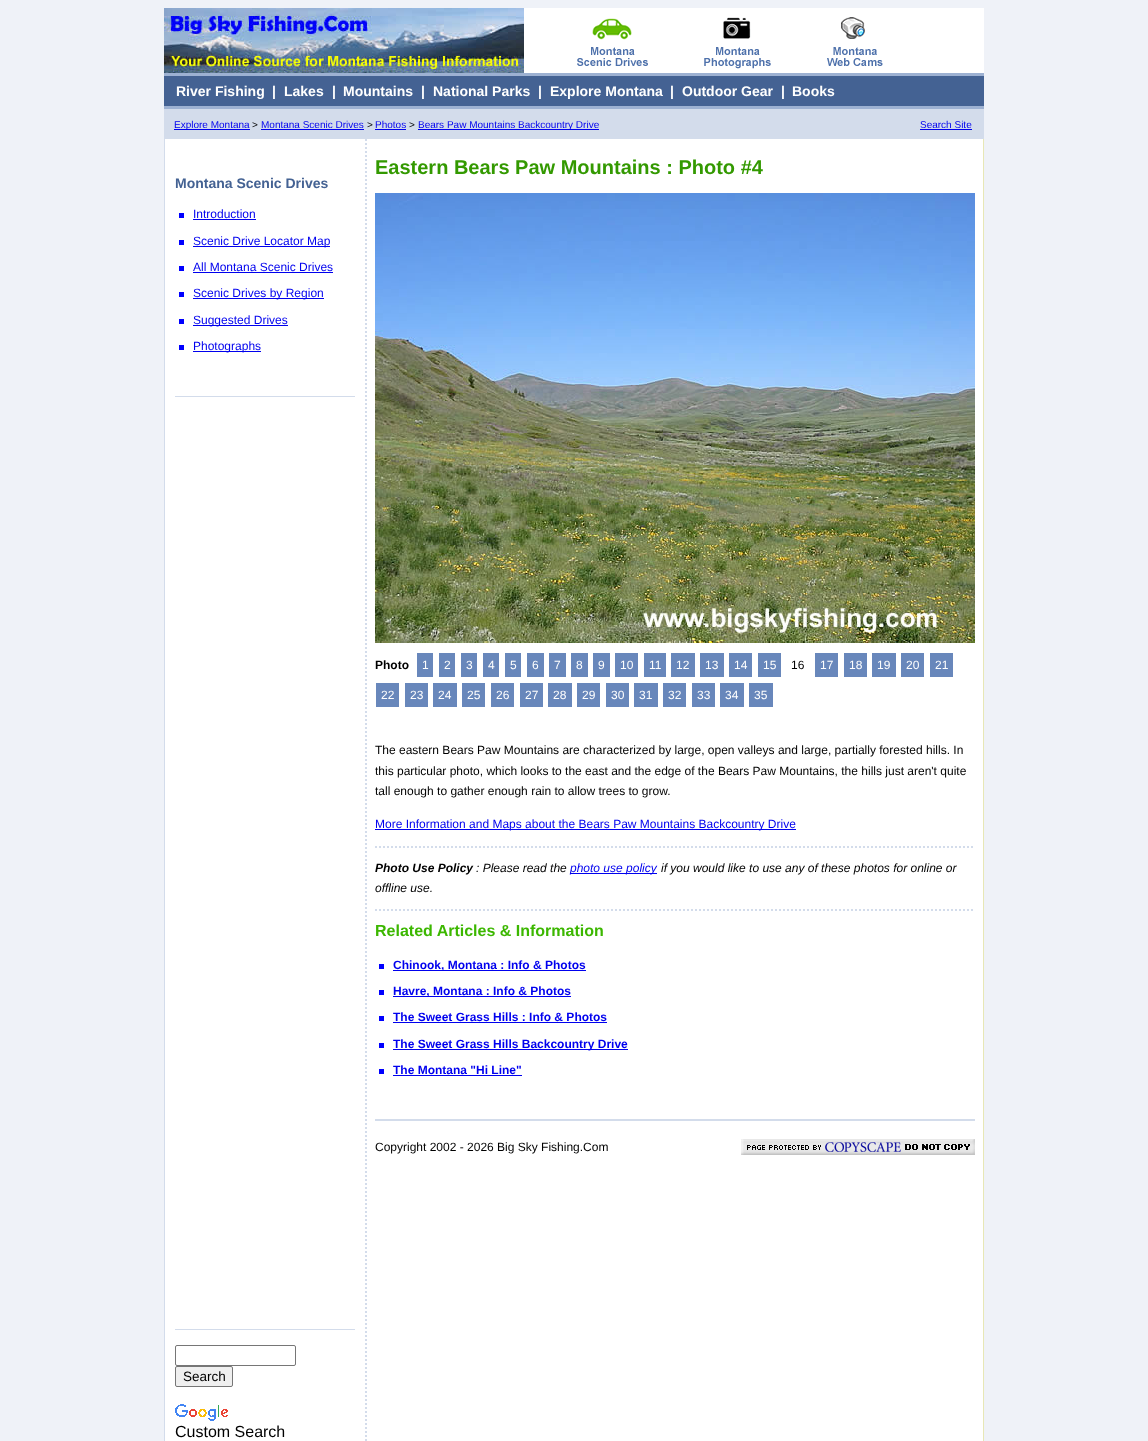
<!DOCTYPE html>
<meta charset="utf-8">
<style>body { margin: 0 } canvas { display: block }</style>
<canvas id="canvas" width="1148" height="1441"></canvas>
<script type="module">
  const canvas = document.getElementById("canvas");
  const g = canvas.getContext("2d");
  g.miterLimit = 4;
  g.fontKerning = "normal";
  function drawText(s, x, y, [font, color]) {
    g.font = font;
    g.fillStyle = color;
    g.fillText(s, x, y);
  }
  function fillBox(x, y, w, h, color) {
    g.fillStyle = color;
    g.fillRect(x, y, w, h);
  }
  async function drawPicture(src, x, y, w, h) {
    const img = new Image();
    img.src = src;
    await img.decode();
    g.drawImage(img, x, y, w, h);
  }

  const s1 = ["bold 14px Liberation Sans", "#FFFFFF"];
  const s2 = ["10px Liberation Sans", "#0000EE"];
  const s3 = ["10px Liberation Sans", "#000000"];
  const s4 = ["bold 14px Liberation Sans", "#446293"];
  const s5 = ["12px Liberation Sans", "#0000EE"];
  const s6 = ["13.5px Liberation Sans", "#000000"];
  const s7 = ["16px Liberation Sans", "#000000"];
  const s8 = ["bold 20px Liberation Sans", "#339900"];
  const s9 = ["bold 12px Liberation Sans", "#000000"];
  const s10 = ["12px Liberation Sans", "#FFFFFF"];
  const s11 = ["12px Liberation Sans", "#000000"];
  const s12 = ["italic bold 12px Liberation Sans", "#000000"];
  const s13 = ["italic 12px Liberation Sans", "#000000"];
  const s14 = ["italic 12px Liberation Sans", "#0000EE"];
  const s15 = ["bold 16px Liberation Sans", "#3CB700"];
  const s16 = ["bold 12px Liberation Sans", "#0000EE"];

  fillBox(0, 0, 1148, 1441, "#EFF2F8");
  fillBox(524, 8, 460, 65, "#FFFFFF");
  await drawPicture("pic1.png", 164, 8, 360, 65);
  await drawPicture("pic2.png", 577, 17, 306, 52);
  fillBox(164, 73, 820, 3, "#9DB1D2");
  fillBox(164, 106, 820, 3, "#9DB1D2");
  fillBox(164, 76, 820, 30, "#446293");
  drawText("River Fishing", 176, 96, s1);
  drawText("|", 272, 96, s1);
  drawText("Lakes", 284, 96, s1);
  drawText("|", 332, 96, s1);
  drawText("Mountains", 343, 96, s1);
  drawText("|", 421, 96, s1);
  drawText("National Parks", 433, 96, s1);
  drawText("|", 538, 96, s1);
  drawText("Explore Montana", 550, 96, s1);
  drawText("|", 670, 96, s1);
  drawText("Outdoor Gear", 682, 96, s1);
  drawText("|", 781, 96, s1);
  drawText("Books", 792, 96, s1);
  fillBox(164, 109, 820, 30, "#D3DCEB");
  fillBox(174, 129, 76, 1, "#0000EE");
  drawText("Explore Montana", 174, 128, s2);
  drawText(">", 252, 128, s3);
  drawText("Montana Scenic Drives", 261, 128, s2);
  fillBox(261, 129, 103, 1, "#0000EE");
  drawText(">", 367, 128, s3);
  drawText("Photos", 375, 128, s2);
  fillBox(375, 129, 31, 1, "#0000EE");
  drawText(">", 409, 128, s3);
  fillBox(418, 129, 181, 1, "#0000EE");
  drawText("Bears Paw Mountains Backcountry Drive", 418, 128, s2);
  drawText("Search Site", 920, 128, s2);
  fillBox(920, 129, 52, 1, "#0000EE");
  fillBox(165, 139, 818, 1302, "#FFFFFF");
  g.beginPath();
  g.moveTo(366, 139);
  g.lineTo(366, 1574);
  g.strokeStyle = "#D3DCEB";
  g.lineWidth = 2;
  g.setLineDash([2, 2]);
  g.stroke();
  fillBox(164, 139, 1, 1302, "#D3DCEB");
  fillBox(175, 396, 180, 1, "#D3DCEB");
  drawText("Montana Scenic Drives", 175, 188, s4);
  fillBox(179, 213, 5, 5, "#0000FF");
  drawText("Introduction", 193, 218, s5);
  fillBox(193, 219, 63, 1, "#0000EE");
  fillBox(179, 240, 5, 5, "#0000FF");
  fillBox(193, 246, 137, 1, "#0000EE");
  drawText("Scenic Drive Locator Map", 193, 245, s5);
  fillBox(179, 266, 5, 5, "#0000FF");
  drawText("All Montana Scenic Drives", 193, 271, s5);
  fillBox(193, 272, 140, 1, "#0000EE");
  fillBox(179, 292, 5, 5, "#0000FF");
  fillBox(193, 298, 131, 1, "#0000EE");
  drawText("Scenic Drives by Region", 193, 297, s5);
  fillBox(179, 319, 5, 5, "#0000FF");
  fillBox(193, 325, 95, 1, "#0000EE");
  drawText("Suggested Drives", 193, 324, s5);
  fillBox(179, 345, 5, 5, "#0000FF");
  fillBox(193, 351, 68, 1, "#0000EE");
  drawText("Photographs", 193, 350, s5);
  fillBox(175, 1329, 180, 1, "#D3DCEB");
  g.beginPath();
  g.roundRect(175.5, 1345.5, 120, 20, 1.5);
  g.strokeStyle = "#767676";
  g.lineWidth = 1;
  g.setLineDash([]);
  g.stroke();
  g.fillStyle = "#EFEFEF";
  g.beginPath();
  g.roundRect(175.5, 1366.5, 57, 20, 1.5);
  g.fill();
  g.stroke();
  drawText("Search", 183, 1381, s6);
  await drawPicture("pic3.png", 175, 1404, 53, 17);
  drawText("Custom Search", 175, 1437, s7);
  fillBox(983, 139, 1, 1302, "#E7E7B6");
  drawText("Eastern Bears Paw Mountains : Photo #4", 375, 174, s8);
  await drawPicture("pic4.png", 375, 193, 600, 450);
  drawText("Photo", 375, 669, s9);
  fillBox(417, 653, 16, 24, "#6887BB");
  drawText("1", 422, 669, s10);
  fillBox(439, 653, 16, 24, "#6887BB");
  drawText("2", 444, 669, s10);
  fillBox(461, 653, 16, 24, "#6887BB");
  drawText("3", 466, 669, s10);
  fillBox(483, 653, 16, 24, "#6887BB");
  drawText("4", 488, 669, s10);
  fillBox(505, 653, 16, 24, "#6887BB");
  drawText("5", 510, 669, s10);
  fillBox(527, 653, 17, 24, "#6887BB");
  drawText("6", 532, 669, s10);
  fillBox(549, 653, 17, 24, "#6887BB");
  drawText("7", 554, 669, s10);
  fillBox(571, 653, 17, 24, "#6887BB");
  drawText("8", 576, 669, s10);
  fillBox(593, 653, 17, 24, "#6887BB");
  drawText("9", 598, 669, s10);
  fillBox(615, 653, 23, 24, "#6887BB");
  drawText("10", 620, 669, s10);
  fillBox(644, 653, 22, 24, "#6887BB");
  drawText("11", 649, 669, s10);
  fillBox(671, 653, 24, 24, "#6887BB");
  drawText("12", 676, 669, s10);
  fillBox(700, 653, 24, 24, "#6887BB");
  drawText("13", 705, 669, s10);
  fillBox(729, 653, 23, 24, "#6887BB");
  drawText("14", 734, 669, s10);
  fillBox(758, 653, 23, 24, "#6887BB");
  drawText("15", 763, 669, s10);
  drawText("16", 791, 669, s11);
  fillBox(815, 653, 23, 24, "#6887BB");
  drawText("17", 820, 669, s10);
  fillBox(844, 653, 23, 24, "#6887BB");
  drawText("18", 849, 669, s10);
  fillBox(872, 653, 24, 24, "#6887BB");
  drawText("19", 877, 669, s10);
  fillBox(901, 653, 23, 24, "#6887BB");
  drawText("20", 906, 669, s10);
  fillBox(930, 653, 23, 24, "#6887BB");
  drawText("21", 935, 669, s10);
  fillBox(376, 683, 23, 24, "#6887BB");
  drawText("22", 381, 699, s10);
  fillBox(405, 683, 23, 24, "#6887BB");
  drawText("23", 410, 699, s10);
  fillBox(433, 683, 24, 24, "#6887BB");
  drawText("24", 438, 699, s10);
  fillBox(462, 683, 23, 24, "#6887BB");
  drawText("25", 467, 699, s10);
  fillBox(491, 683, 23, 24, "#6887BB");
  drawText("26", 496, 699, s10);
  fillBox(520, 683, 23, 24, "#6887BB");
  drawText("27", 525, 699, s10);
  fillBox(548, 683, 24, 24, "#6887BB");
  drawText("28", 553, 699, s10);
  fillBox(577, 683, 23, 24, "#6887BB");
  drawText("29", 582, 699, s10);
  fillBox(606, 683, 23, 24, "#6887BB");
  drawText("30", 611, 699, s10);
  fillBox(634, 683, 24, 24, "#6887BB");
  drawText("31", 639, 699, s10);
  fillBox(663, 683, 23, 24, "#6887BB");
  drawText("32", 668, 699, s10);
  fillBox(692, 683, 23, 24, "#6887BB");
  drawText("33", 697, 699, s10);
  fillBox(720, 683, 24, 24, "#6887BB");
  drawText("34", 725, 699, s10);
  fillBox(749, 683, 24, 24, "#6887BB");
  drawText("35", 754, 699, s10);
  drawText("The eastern Bears Paw Mountains are characterized by large, open valleys and large, partially forested hills. In", 375, 754, s11);
  drawText("this particular photo, which looks to the east and the edge of the Bears Paw Mountains, the hills just aren't quite", 375, 775, s11);
  drawText("tall enough to gather enough rain to allow trees to grow.", 375, 795, s11);
  fillBox(375, 829, 421, 1, "#0000EE");
  drawText("More Information and Maps about the Bears Paw Mountains Backcountry Drive", 375, 828, s5);
  g.beginPath();
  g.moveTo(375, 847);
  g.lineTo(975, 847);
  g.strokeStyle = "#D3DCEB";
  g.lineWidth = 2;
  g.setLineDash([2, 2]);
  g.stroke();
  drawText("Photo Use Policy", 375, 872, s12);
  drawText(": Please read the", 476, 872, s13);
  fillBox(570, 873, 87, 1, "#0000EE");
  drawText("photo use policy", 570, 872, s14);
  drawText("if you would like to use any of these photos for online or", 661, 872, s13);
  drawText("offline use.", 375, 892, s13);
  g.beginPath();
  g.moveTo(375, 910);
  g.lineTo(975, 910);
  g.stroke();
  drawText("Related Articles & Information", 375, 936, s15);
  fillBox(379, 964, 5, 5, "#0000FF");
  fillBox(393, 970, 193, 1, "#0000EE");
  drawText("Chinook, Montana : Info & Photos", 393, 969, s16);
  fillBox(379, 990, 5, 5, "#0000FF");
  fillBox(393, 996, 178, 1, "#0000EE");
  drawText("Havre, Montana : Info & Photos", 393, 995, s16);
  fillBox(379, 1016, 5, 5, "#0000FF");
  drawText("The Sweet Grass Hills : Info & Photos", 393, 1021, s16);
  fillBox(393, 1022, 214, 1, "#0000EE");
  fillBox(379, 1043, 5, 5, "#0000FF");
  fillBox(393, 1049, 235, 1, "#0000EE");
  drawText("The Sweet Grass Hills Backcountry Drive", 393, 1048, s16);
  fillBox(379, 1069, 5, 5, "#0000FF");
  drawText("The Montana \"Hi Line\"", 393, 1074, s16);
  fillBox(393, 1075, 129, 1, "#0000EE");
  fillBox(375, 1119, 600, 2, "#D3DCEB");
  drawText("Copyright 2002 - 2026 Big Sky Fishing.Com", 375, 1151, s11);
  await drawPicture("pic5.png", 741, 1139, 234, 16);
</script>
